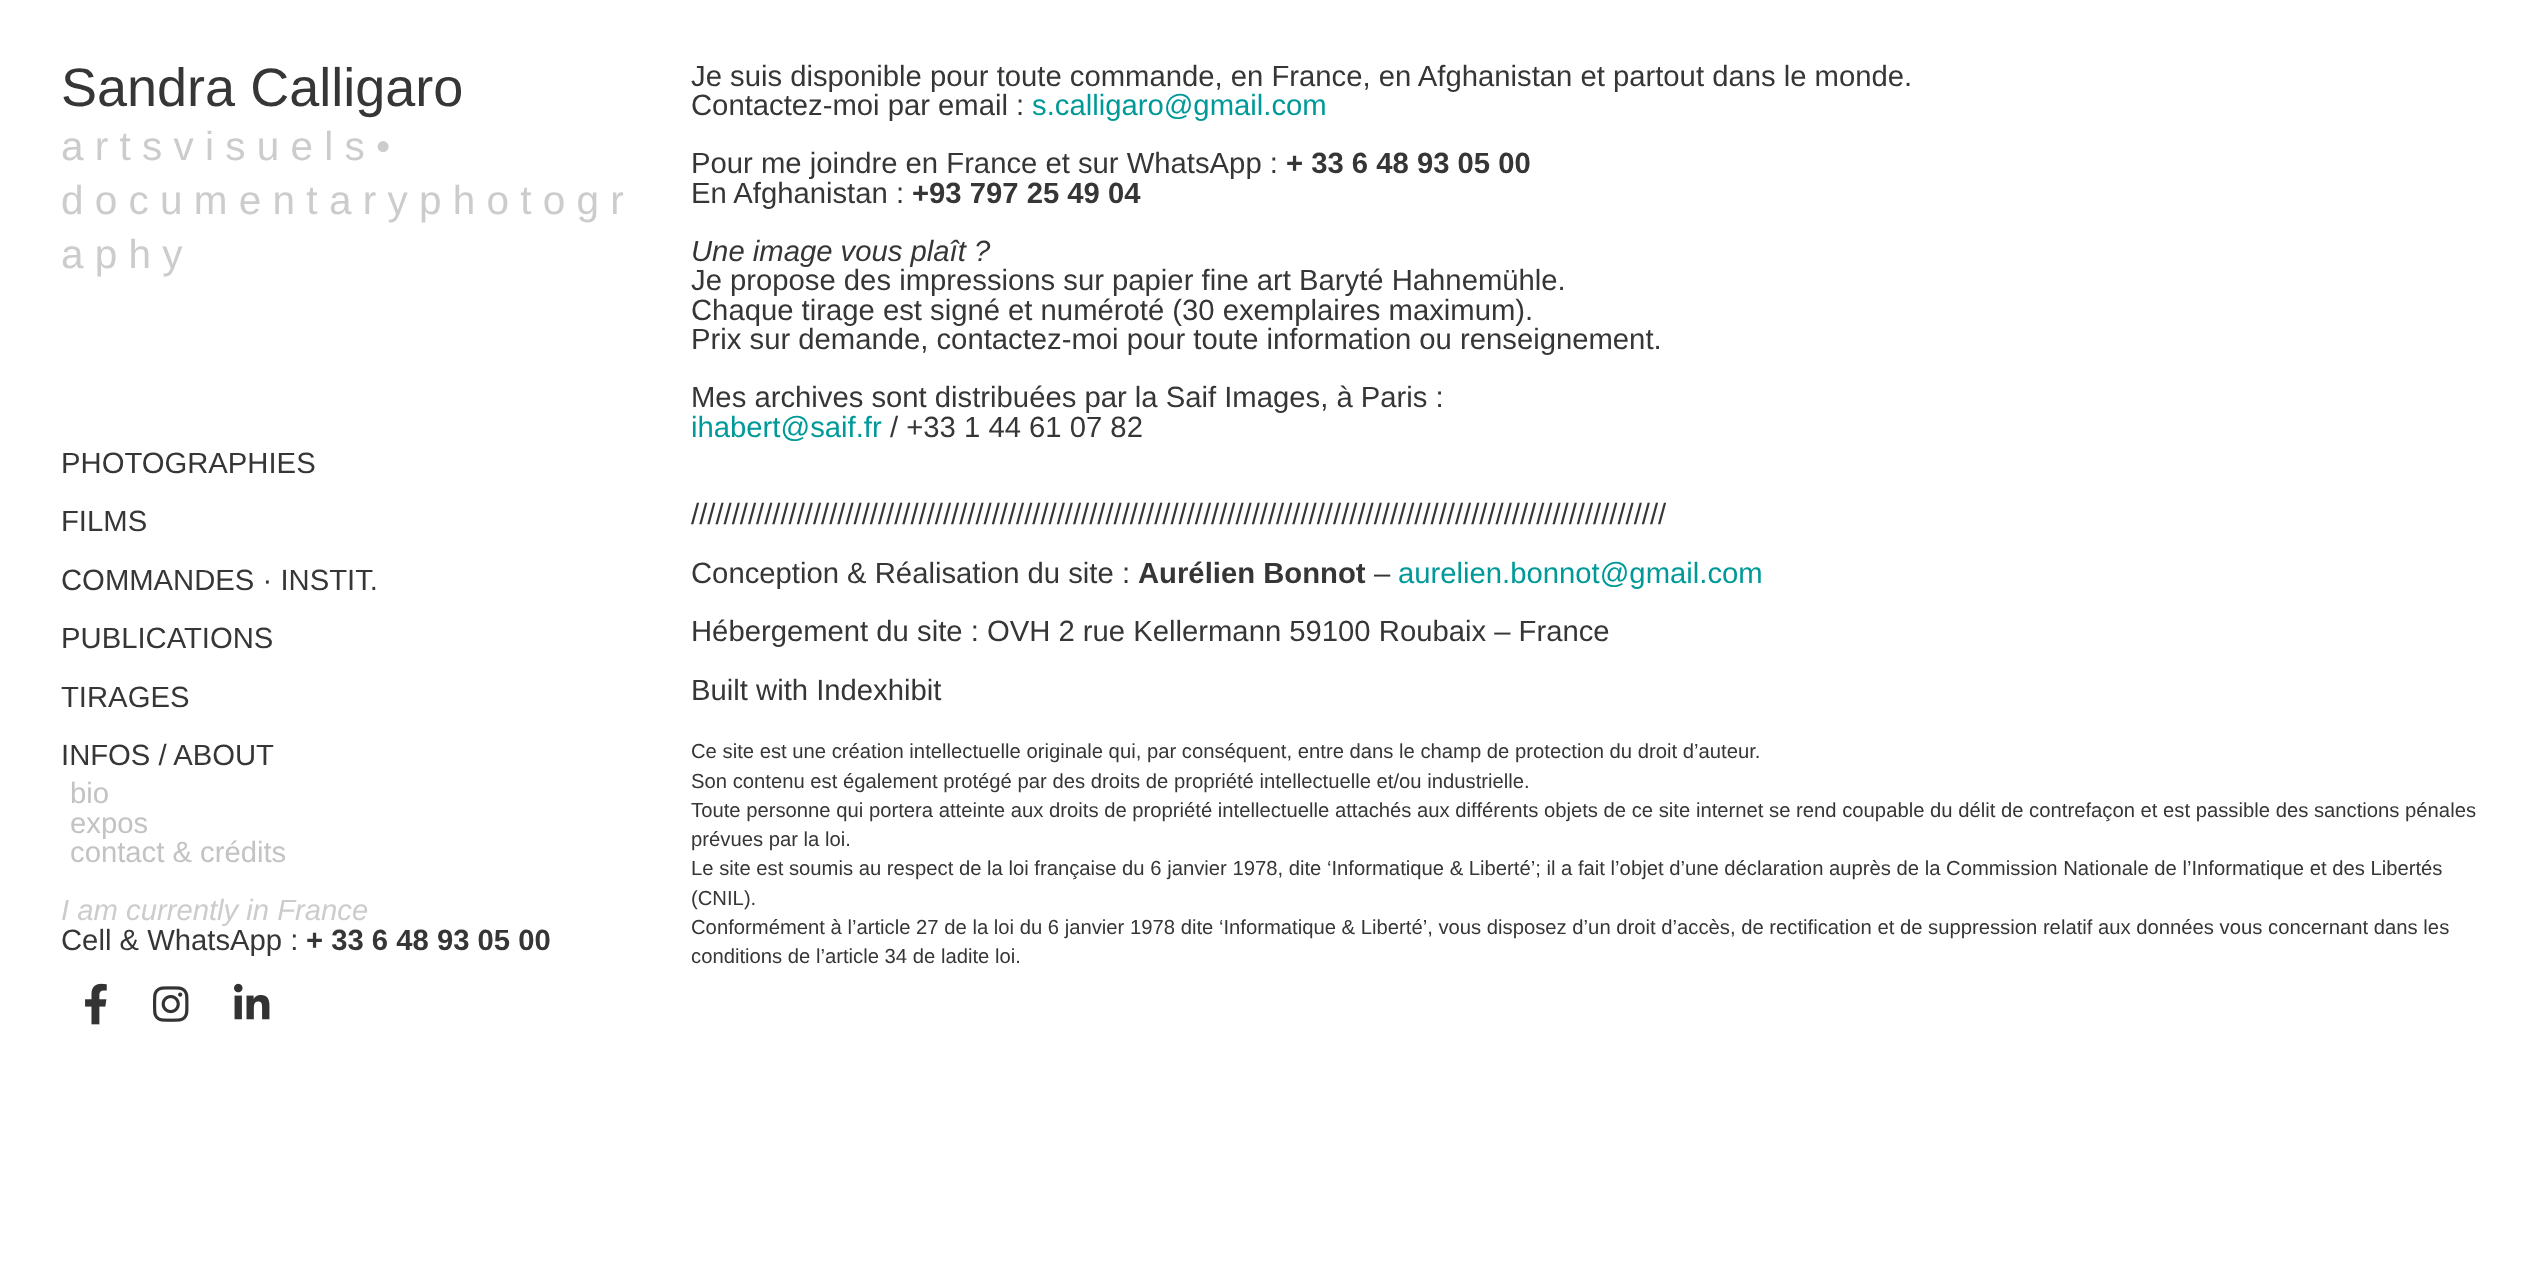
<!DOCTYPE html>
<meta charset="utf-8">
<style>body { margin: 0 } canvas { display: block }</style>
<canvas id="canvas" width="2524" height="1262"></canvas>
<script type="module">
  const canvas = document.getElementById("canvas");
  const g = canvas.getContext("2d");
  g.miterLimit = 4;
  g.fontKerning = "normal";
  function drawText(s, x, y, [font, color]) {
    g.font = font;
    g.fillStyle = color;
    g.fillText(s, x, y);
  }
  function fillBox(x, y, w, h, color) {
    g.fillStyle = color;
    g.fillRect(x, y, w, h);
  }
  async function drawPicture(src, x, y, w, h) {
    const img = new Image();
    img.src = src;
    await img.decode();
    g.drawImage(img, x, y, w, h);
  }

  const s1 = ["54px Liberation Sans", "#363636"];
  const s2 = ["40.5px Liberation Sans", "#CCCCCC"];
  const s3 = ["29.25px Liberation Sans", "#363636"];
  const s4 = ["29.25px Liberation Sans", "#C3C3C3"];
  const s5 = ["italic 29.25px Liberation Sans", "#CCCCCC"];
  const s6 = ["bold 29.25px Liberation Sans", "#363636"];
  const s7 = ["29.25px Liberation Sans", "#009999"];
  const s8 = ["italic 29.25px Liberation Sans", "#363636"];
  const s9 = ["20.25px Liberation Sans", "#363636"];

  fillBox(0, 0, 2524, 1262, "#FFFFFF");
  drawText("Sandra Calligaro", 61, 106, s1);
  drawText("a r t s v i s u e l s •", 61, 160, s2);
  drawText("d o c u m e n t a r y p h o t o g r", 61, 214, s2);
  drawText("a p h y", 61, 268, s2);
  drawText("PHOTOGRAPHIES", 61, 473, s3);
  drawText("FILMS", 61, 531, s3);
  drawText("COMMANDES · INSTIT.", 61, 590, s3);
  drawText("PUBLICATIONS", 61, 648, s3);
  drawText("TIRAGES", 61, 707, s3);
  drawText("INFOS / ABOUT", 61, 765, s3);
  drawText("bio", 70, 803, s4);
  drawText("expos", 70, 833, s4);
  drawText("contact & crédits", 70, 862, s4);
  drawText("I am currently in France", 61, 920, s5);
  drawText("Cell & WhatsApp :", 61, 950, s3);
  drawText("+ 33 6 48 93 05 00", 306, 950, s6);
  await drawPicture("pic1.png", 85, 983, 22, 42);
  await drawPicture("pic2.png", 153, 986, 36, 36);
  await drawPicture("pic3.png", 234, 983, 36, 37);
  drawText("Je suis disponible pour toute commande, en France, en Afghanistan et partout dans le monde.", 691, 86, s3);
  drawText("Contactez-moi par email :", 691, 115, s3);
  drawText("s.calligaro@gmail.com", 1032, 115, s7);
  drawText("Pour me joindre en France et sur WhatsApp :", 691, 173, s3);
  drawText("+ 33 6 48 93 05 00", 1286, 173, s6);
  drawText("En Afghanistan :", 691, 203, s3);
  drawText("+93 797 25 49 04", 912, 203, s6);
  drawText("Une image vous plaît ?", 691, 261, s8);
  drawText("Je propose des impressions sur papier fine art Baryté Hahnemühle.", 691, 290, s3);
  drawText("Chaque tirage est signé et numéroté (30 exemplaires maximum).", 691, 320, s3);
  drawText("Prix sur demande, contactez-moi pour toute information ou renseignement.", 691, 349, s3);
  drawText("Mes archives sont distribuées par la Saif Images, à Paris :", 691, 407, s3);
  drawText("ihabert@saif.fr", 691, 437, s7);
  drawText("/ +33 1 44 61 07 82", 890, 437, s3);
  drawText("////////////////////////////////////////////////////////////////////////////////////////////////////////////////////////", 691, 524, s3);
  drawText("Conception & Réalisation du site :", 691, 583, s3);
  drawText("Aurélien Bonnot", 1138, 583, s6);
  drawText("–", 1374, 583, s3);
  drawText("aurelien.bonnot@gmail.com", 1398, 583, s7);
  drawText("Hébergement du site : OVH 2 rue Kellermann 59100 Roubaix – France", 691, 641, s3);
  drawText("Built with Indexhibit", 691, 700, s3);
  drawText("Ce site est une création intellectuelle originale qui, par conséquent, entre dans le champ de protection du droit d’auteur.", 691, 758, s9);
  drawText("Son contenu est également protégé par des droits de propriété intellectuelle et/ou industrielle.", 691, 788, s9);
  drawText("Toute personne qui portera atteinte aux droits de propriété intellectuelle attachés aux différents objets de ce site internet se rend coupable du délit de contrefaçon et est passible des sanctions pénales", 691, 817, s9);
  drawText("prévues par la loi.", 691, 846, s9);
  drawText("Le site est soumis au respect de la loi française du 6 janvier 1978, dite ‘Informatique & Liberté’; il a fait l’objet d’une déclaration auprès de la Commission Nationale de l’Informatique et des Libertés", 691, 875, s9);
  drawText("(CNIL).", 691, 905, s9);
  drawText("Conformément à l’article 27 de la loi du 6 janvier 1978 dite ‘Informatique & Liberté’, vous disposez d’un droit d’accès, de rectification et de suppression relatif aux données vous concernant dans les", 691, 934, s9);
  drawText("conditions de l’article 34 de ladite loi.", 691, 963, s9);
</script>
